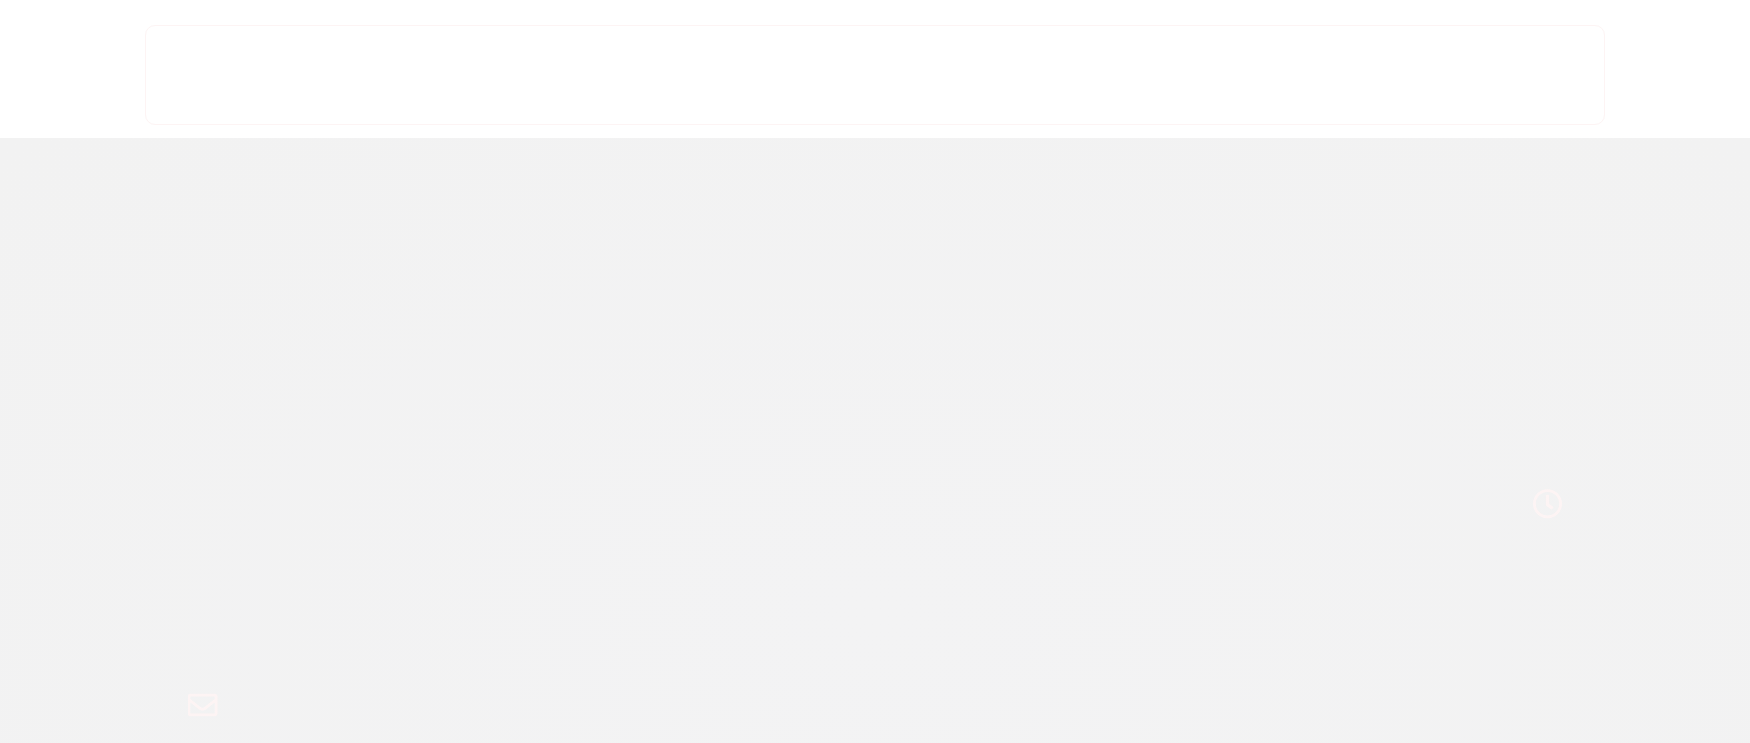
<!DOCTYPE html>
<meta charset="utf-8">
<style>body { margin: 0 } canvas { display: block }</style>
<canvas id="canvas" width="1750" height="743"></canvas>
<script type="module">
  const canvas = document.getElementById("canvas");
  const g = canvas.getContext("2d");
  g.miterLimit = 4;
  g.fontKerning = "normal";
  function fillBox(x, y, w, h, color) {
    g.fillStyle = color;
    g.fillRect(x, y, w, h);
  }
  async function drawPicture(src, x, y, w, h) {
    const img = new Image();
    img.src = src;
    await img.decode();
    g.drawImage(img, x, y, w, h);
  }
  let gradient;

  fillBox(0, 0, 1750, 743, "#FFFFFF");
  g.beginPath();
  g.roundRect(145.5, 25.5, 1459, 99, 9.5);
  g.strokeStyle = "#FDF4F4";
  g.stroke();
  gradient = g.createRadialGradient(875, 1126.88, 0, 875, 1126.88, 1237);
  gradient.addColorStop(0, "#F3F3F4");
  gradient.addColorStop(1, "#F2F2F2");
  g.fillStyle = gradient;
  g.beginPath();
  g.rect(0, 138, 1750, 605);
  g.save();
  g.clip();
  g.scale(1, 674 / 1237);
  g.fillRect(0, 0, 1750, 1364);
  g.restore();
  await drawPicture("pic1.png", 1533, 489, 29, 30);
  await drawPicture("pic2.png", 188, 693, 30, 24);
</script>
